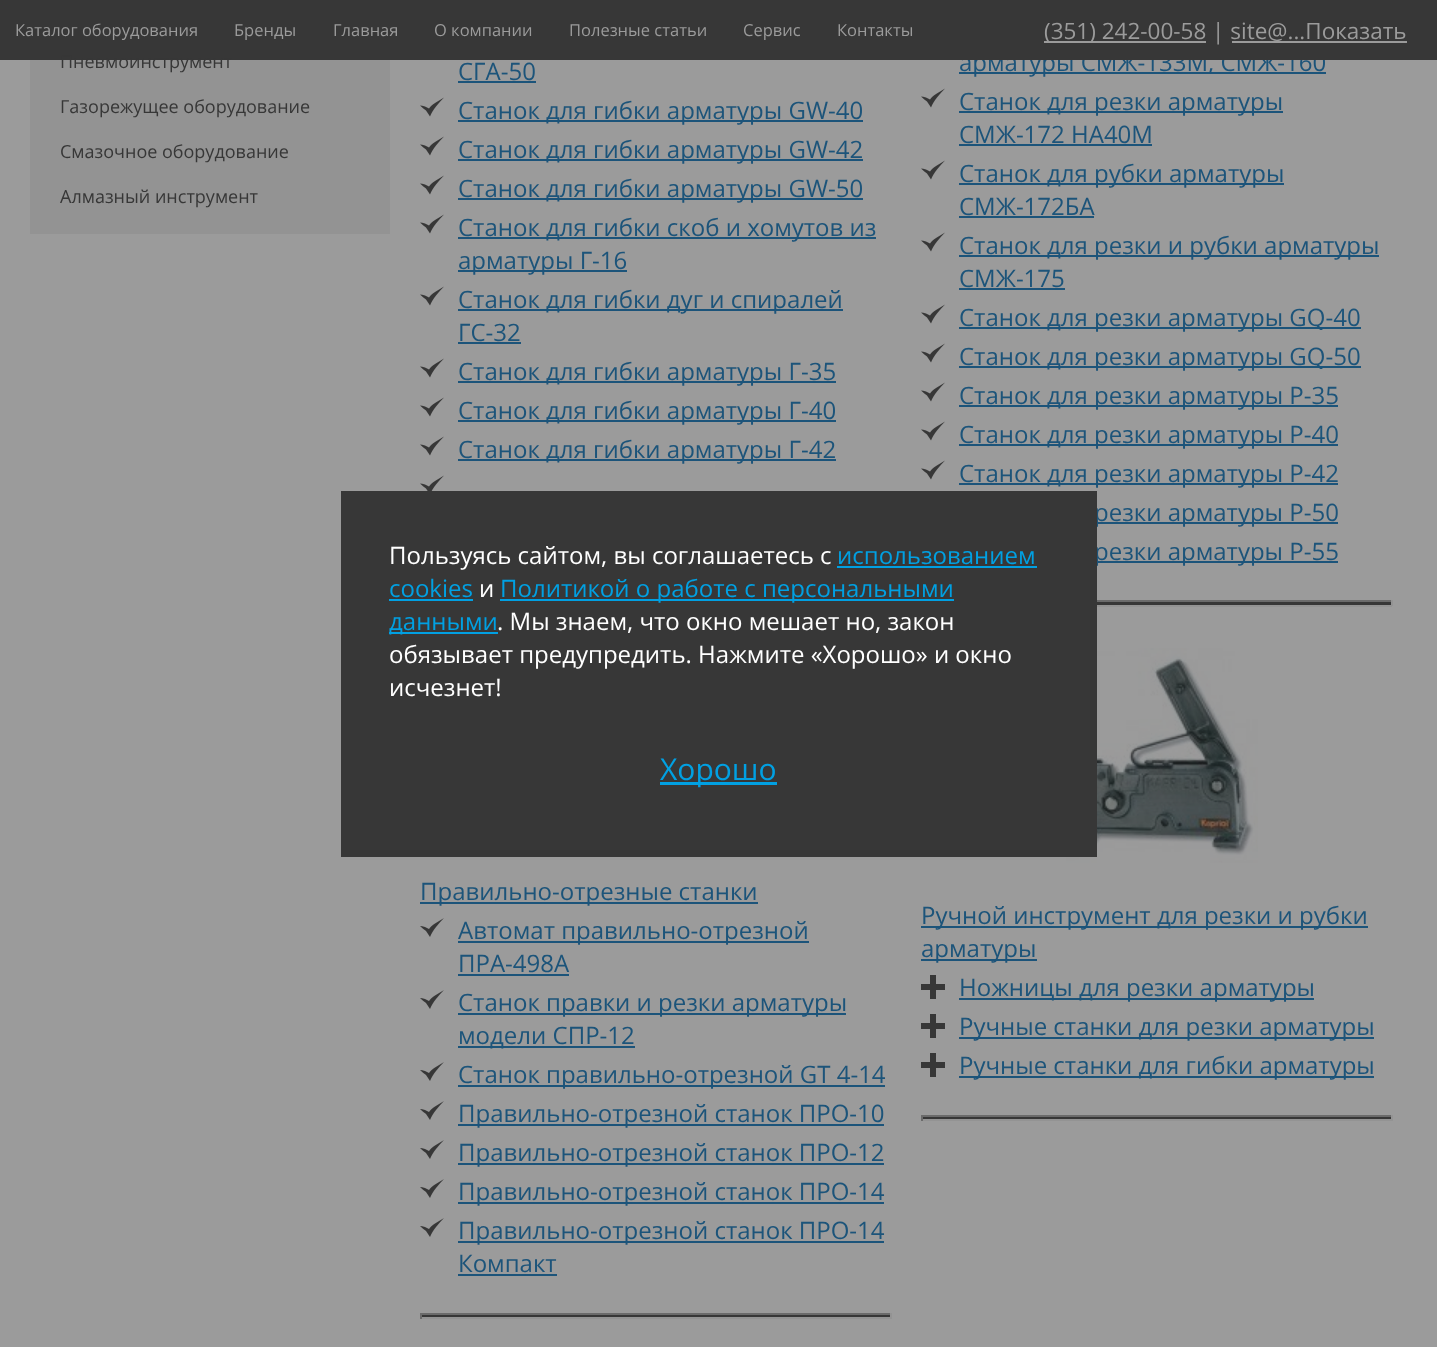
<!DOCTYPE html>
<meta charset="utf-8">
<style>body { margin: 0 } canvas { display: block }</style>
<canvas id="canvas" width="1437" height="1347"></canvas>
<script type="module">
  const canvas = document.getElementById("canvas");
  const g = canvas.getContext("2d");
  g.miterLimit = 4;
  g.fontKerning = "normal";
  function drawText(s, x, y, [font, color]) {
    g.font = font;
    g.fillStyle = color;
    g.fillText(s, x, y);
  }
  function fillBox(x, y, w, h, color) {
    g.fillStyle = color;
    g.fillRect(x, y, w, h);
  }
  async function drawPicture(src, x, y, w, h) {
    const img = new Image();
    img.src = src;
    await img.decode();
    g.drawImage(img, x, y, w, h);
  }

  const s1 = ["24px Open Sans", "#1C547A"];
  const s2 = ["16.5px Open Sans", "#9B9B9B"];
  const s3 = ["22.5px Open Sans", "#9B9B9B"];
  const s4 = ["18px Open Sans", "#373737"];
  const s5 = ["24px Open Sans", "#FFFFFF"];
  const s6 = ["24px Open Sans", "#01A0E2"];
  const s7 = ["30px Open Sans", "#01A0E2"];

  fillBox(0, 0, 1437, 1347, "#9B9B9B");
  fillBox(959, 72, 367, 2, "#1C547A");
  drawText("арматуры СМЖ-133M, СМЖ-160", 959, 71, s1);
  fillBox(0, 0, 1437, 60, "#373737");
  drawText("Каталог оборудования", 15, 36, s2);
  drawText("Бренды", 234, 36, s2);
  drawText("Главная", 333, 36, s2);
  drawText("О компании", 434, 36, s2);
  drawText("Полезные статьи", 569, 36, s2);
  drawText("Сервис", 743, 36, s2);
  drawText("Контакты", 837, 36, s2);
  fillBox(1044, 41, 162, 2, "#9B9B9B");
  drawText("(351) 242-00-58 | site@...Показать", 1044, 39, s3);
  fillBox(1232, 41, 175, 2, "#9B9B9B");
  fillBox(30, 60, 360, 174, "#939393");
  drawText("Пневмоинструмент", 60, 68, s4);
  drawText("Газорежущее оборудование", 60, 113, s4);
  drawText("Смазочное оборудование", 60, 158, s4);
  drawText("Алмазный инструмент", 60, 203, s4);
  drawText("СГА-50", 458, 80, s1);
  fillBox(458, 81, 78, 2, "#1C547A");
  await drawPicture("pic1.png", 420, 97, 24, 20);
  fillBox(458, 120, 405, 2, "#1C547A");
  drawText("Станок для гибки арматуры GW-40", 458, 119, s1);
  await drawPicture("pic1.png", 420, 136, 24, 20);
  fillBox(458, 159, 405, 2, "#1C547A");
  drawText("Станок для гибки арматуры GW-42", 458, 158, s1);
  await drawPicture("pic1.png", 420, 175, 24, 20);
  fillBox(458, 198, 405, 2, "#1C547A");
  drawText("Станок для гибки арматуры GW-50", 458, 197, s1);
  await drawPicture("pic1.png", 420, 214, 24, 20);
  fillBox(458, 237, 418, 2, "#1C547A");
  drawText("Станок для гибки скоб и хомутов из", 458, 236, s1);
  fillBox(458, 270, 169, 2, "#1C547A");
  drawText("арматуры Г-16", 458, 269, s1);
  await drawPicture("pic1.png", 420, 286, 24, 20);
  fillBox(458, 309, 385, 2, "#1C547A");
  drawText("Станок для гибки дуг и спиралей", 458, 308, s1);
  drawText("ГС-32", 458, 341, s1);
  fillBox(458, 342, 63, 2, "#1C547A");
  await drawPicture("pic1.png", 420, 358, 24, 20);
  fillBox(458, 381, 378, 2, "#1C547A");
  drawText("Станок для гибки арматуры Г-35", 458, 380, s1);
  await drawPicture("pic1.png", 420, 397, 24, 20);
  fillBox(458, 420, 378, 2, "#1C547A");
  drawText("Станок для гибки арматуры Г-40", 458, 419, s1);
  await drawPicture("pic1.png", 420, 436, 24, 20);
  fillBox(458, 459, 378, 2, "#1C547A");
  drawText("Станок для гибки арматуры Г-42", 458, 458, s1);
  await drawPicture("pic2.png", 420, 475, 24, 16);
  await drawPicture("pic1.png", 921, 88, 24, 20);
  fillBox(959, 111, 324, 2, "#1C547A");
  drawText("Станок для резки арматуры", 959, 110, s1);
  drawText("СМЖ-172 НА40М", 959, 143, s1);
  fillBox(959, 144, 193, 2, "#1C547A");
  await drawPicture("pic1.png", 921, 160, 24, 20);
  fillBox(959, 183, 325, 2, "#1C547A");
  drawText("Станок для рубки арматуры", 959, 182, s1);
  drawText("СМЖ-172БА", 959, 215, s1);
  fillBox(959, 216, 135, 2, "#1C547A");
  await drawPicture("pic1.png", 921, 232, 24, 20);
  fillBox(959, 255, 420, 2, "#1C547A");
  drawText("Станок для резки и рубки арматуры", 959, 254, s1);
  drawText("СМЖ-175", 959, 287, s1);
  fillBox(959, 288, 106, 2, "#1C547A");
  await drawPicture("pic1.png", 921, 304, 24, 20);
  fillBox(959, 327, 402, 2, "#1C547A");
  drawText("Станок для резки арматуры GQ-40", 959, 326, s1);
  await drawPicture("pic1.png", 921, 343, 24, 20);
  fillBox(959, 366, 402, 2, "#1C547A");
  drawText("Станок для резки арматуры GQ-50", 959, 365, s1);
  await drawPicture("pic1.png", 921, 382, 24, 20);
  fillBox(959, 405, 379, 2, "#1C547A");
  drawText("Станок для резки арматуры Р-35", 959, 404, s1);
  await drawPicture("pic1.png", 921, 421, 24, 20);
  fillBox(959, 444, 379, 2, "#1C547A");
  drawText("Станок для резки арматуры Р-40", 959, 443, s1);
  await drawPicture("pic1.png", 921, 460, 24, 20);
  fillBox(959, 483, 379, 2, "#1C547A");
  drawText("Станок для резки арматуры Р-42", 959, 482, s1);
  fillBox(1097, 522, 241, 2, "#1C547A");
  drawText("резки арматуры Р-50", 1094, 521, s1);
  fillBox(1097, 561, 241, 2, "#1C547A");
  drawText("резки арматуры Р-55", 1094, 560, s1);
  fillBox(1097, 602, 295, 3, "#373737");
  fillBox(1097, 600, 295, 2, "#6B6B6B");
  fillBox(1391, 600, 2, 6, "#939393");
  fillBox(1097, 605, 295, 2, "#939393");
  fillBox(420, 902, 338, 2, "#1C547A");
  drawText("Правильно-отрезные станки", 420, 900, s1);
  await drawPicture("pic3.png", 420, 918, 24, 19);
  fillBox(458, 941, 351, 2, "#1C547A");
  drawText("Автомат правильно-отрезной", 458, 939, s1);
  drawText("ПРА-498А", 458, 972, s1);
  fillBox(458, 974, 111, 2, "#1C547A");
  await drawPicture("pic3.png", 420, 990, 24, 19);
  fillBox(458, 1013, 388, 2, "#1C547A");
  drawText("Станок правки и резки арматуры", 458, 1011, s1);
  fillBox(458, 1046, 177, 2, "#1C547A");
  drawText("модели СПР-12", 458, 1044, s1);
  await drawPicture("pic3.png", 420, 1062, 24, 19);
  fillBox(458, 1085, 427, 2, "#1C547A");
  drawText("Станок правильно-отрезной GT 4-14", 458, 1083, s1);
  await drawPicture("pic3.png", 420, 1101, 24, 19);
  fillBox(458, 1124, 426, 2, "#1C547A");
  drawText("Правильно-отрезной станок ПРО-10", 458, 1122, s1);
  await drawPicture("pic3.png", 420, 1140, 24, 19);
  fillBox(458, 1163, 426, 2, "#1C547A");
  drawText("Правильно-отрезной станок ПРО-12", 458, 1161, s1);
  await drawPicture("pic3.png", 420, 1179, 24, 19);
  fillBox(458, 1202, 426, 2, "#1C547A");
  drawText("Правильно-отрезной станок ПРО-14", 458, 1200, s1);
  await drawPicture("pic3.png", 420, 1218, 24, 19);
  fillBox(458, 1241, 426, 2, "#1C547A");
  drawText("Правильно-отрезной станок ПРО-14", 458, 1239, s1);
  drawText("Компакт", 458, 1272, s1);
  fillBox(458, 1274, 99, 2, "#1C547A");
  fillBox(420, 1315, 471, 2, "#373737");
  fillBox(420, 1313, 471, 2, "#6B6B6B");
  fillBox(890, 1313, 2, 6, "#939393");
  fillBox(420, 1317, 471, 2, "#939393");
  fillBox(420, 1313, 2, 6, "#6B6B6B");
  await drawPicture("pic4.png", 1055, 648, 203, 215);
  fillBox(921, 926, 447, 2, "#1C547A");
  drawText("Ручной инструмент для резки и рубки", 921, 924, s1);
  fillBox(921, 959, 116, 2, "#1C547A");
  drawText("арматуры", 921, 957, s1);
  await drawPicture("pic5.png", 921, 975, 24, 24);
  fillBox(959, 998, 355, 2, "#1C547A");
  drawText("Ножницы для резки арматуры", 959, 996, s1);
  await drawPicture("pic5.png", 921, 1014, 24, 24);
  fillBox(959, 1037, 415, 2, "#1C547A");
  drawText("Ручные станки для резки арматуры", 959, 1035, s1);
  await drawPicture("pic5.png", 921, 1053, 24, 24);
  fillBox(959, 1076, 415, 2, "#1C547A");
  drawText("Ручные станки для гибки арматуры", 959, 1074, s1);
  fillBox(921, 1117, 471, 2, "#373737");
  fillBox(921, 1115, 471, 2, "#6B6B6B");
  fillBox(1391, 1115, 2, 6, "#939393");
  fillBox(921, 1119, 471, 2, "#939393");
  fillBox(921, 1115, 2, 6, "#6B6B6B");
  fillBox(341, 491, 756, 366, "#373737");
  drawText("Пользуясь сайтом, вы соглашаетесь с", 389, 564, s5);
  drawText("использованием", 837, 564, s6);
  fillBox(837, 566, 200, 2, "#01A0E2");
  drawText("cookies", 389, 597, s6);
  fillBox(389, 599, 84, 2, "#01A0E2");
  drawText("и", 479, 597, s5);
  fillBox(500, 599, 454, 2, "#01A0E2");
  drawText("Политикой о работе с персональными", 500, 597, s6);
  fillBox(389, 632, 109, 2, "#01A0E2");
  drawText("данными", 389, 630, s6);
  drawText(". Мы знаем, что окно мешает но, закон", 497, 630, s5);
  drawText("обязывает предупредить. Нажмите «Хорошо» и окно", 389, 663, s5);
  drawText("исчезнет!", 389, 696, s5);
  fillBox(660, 782, 117, 3, "#01A0E2");
  drawText("Хорошо", 660, 780, s7);
</script>
